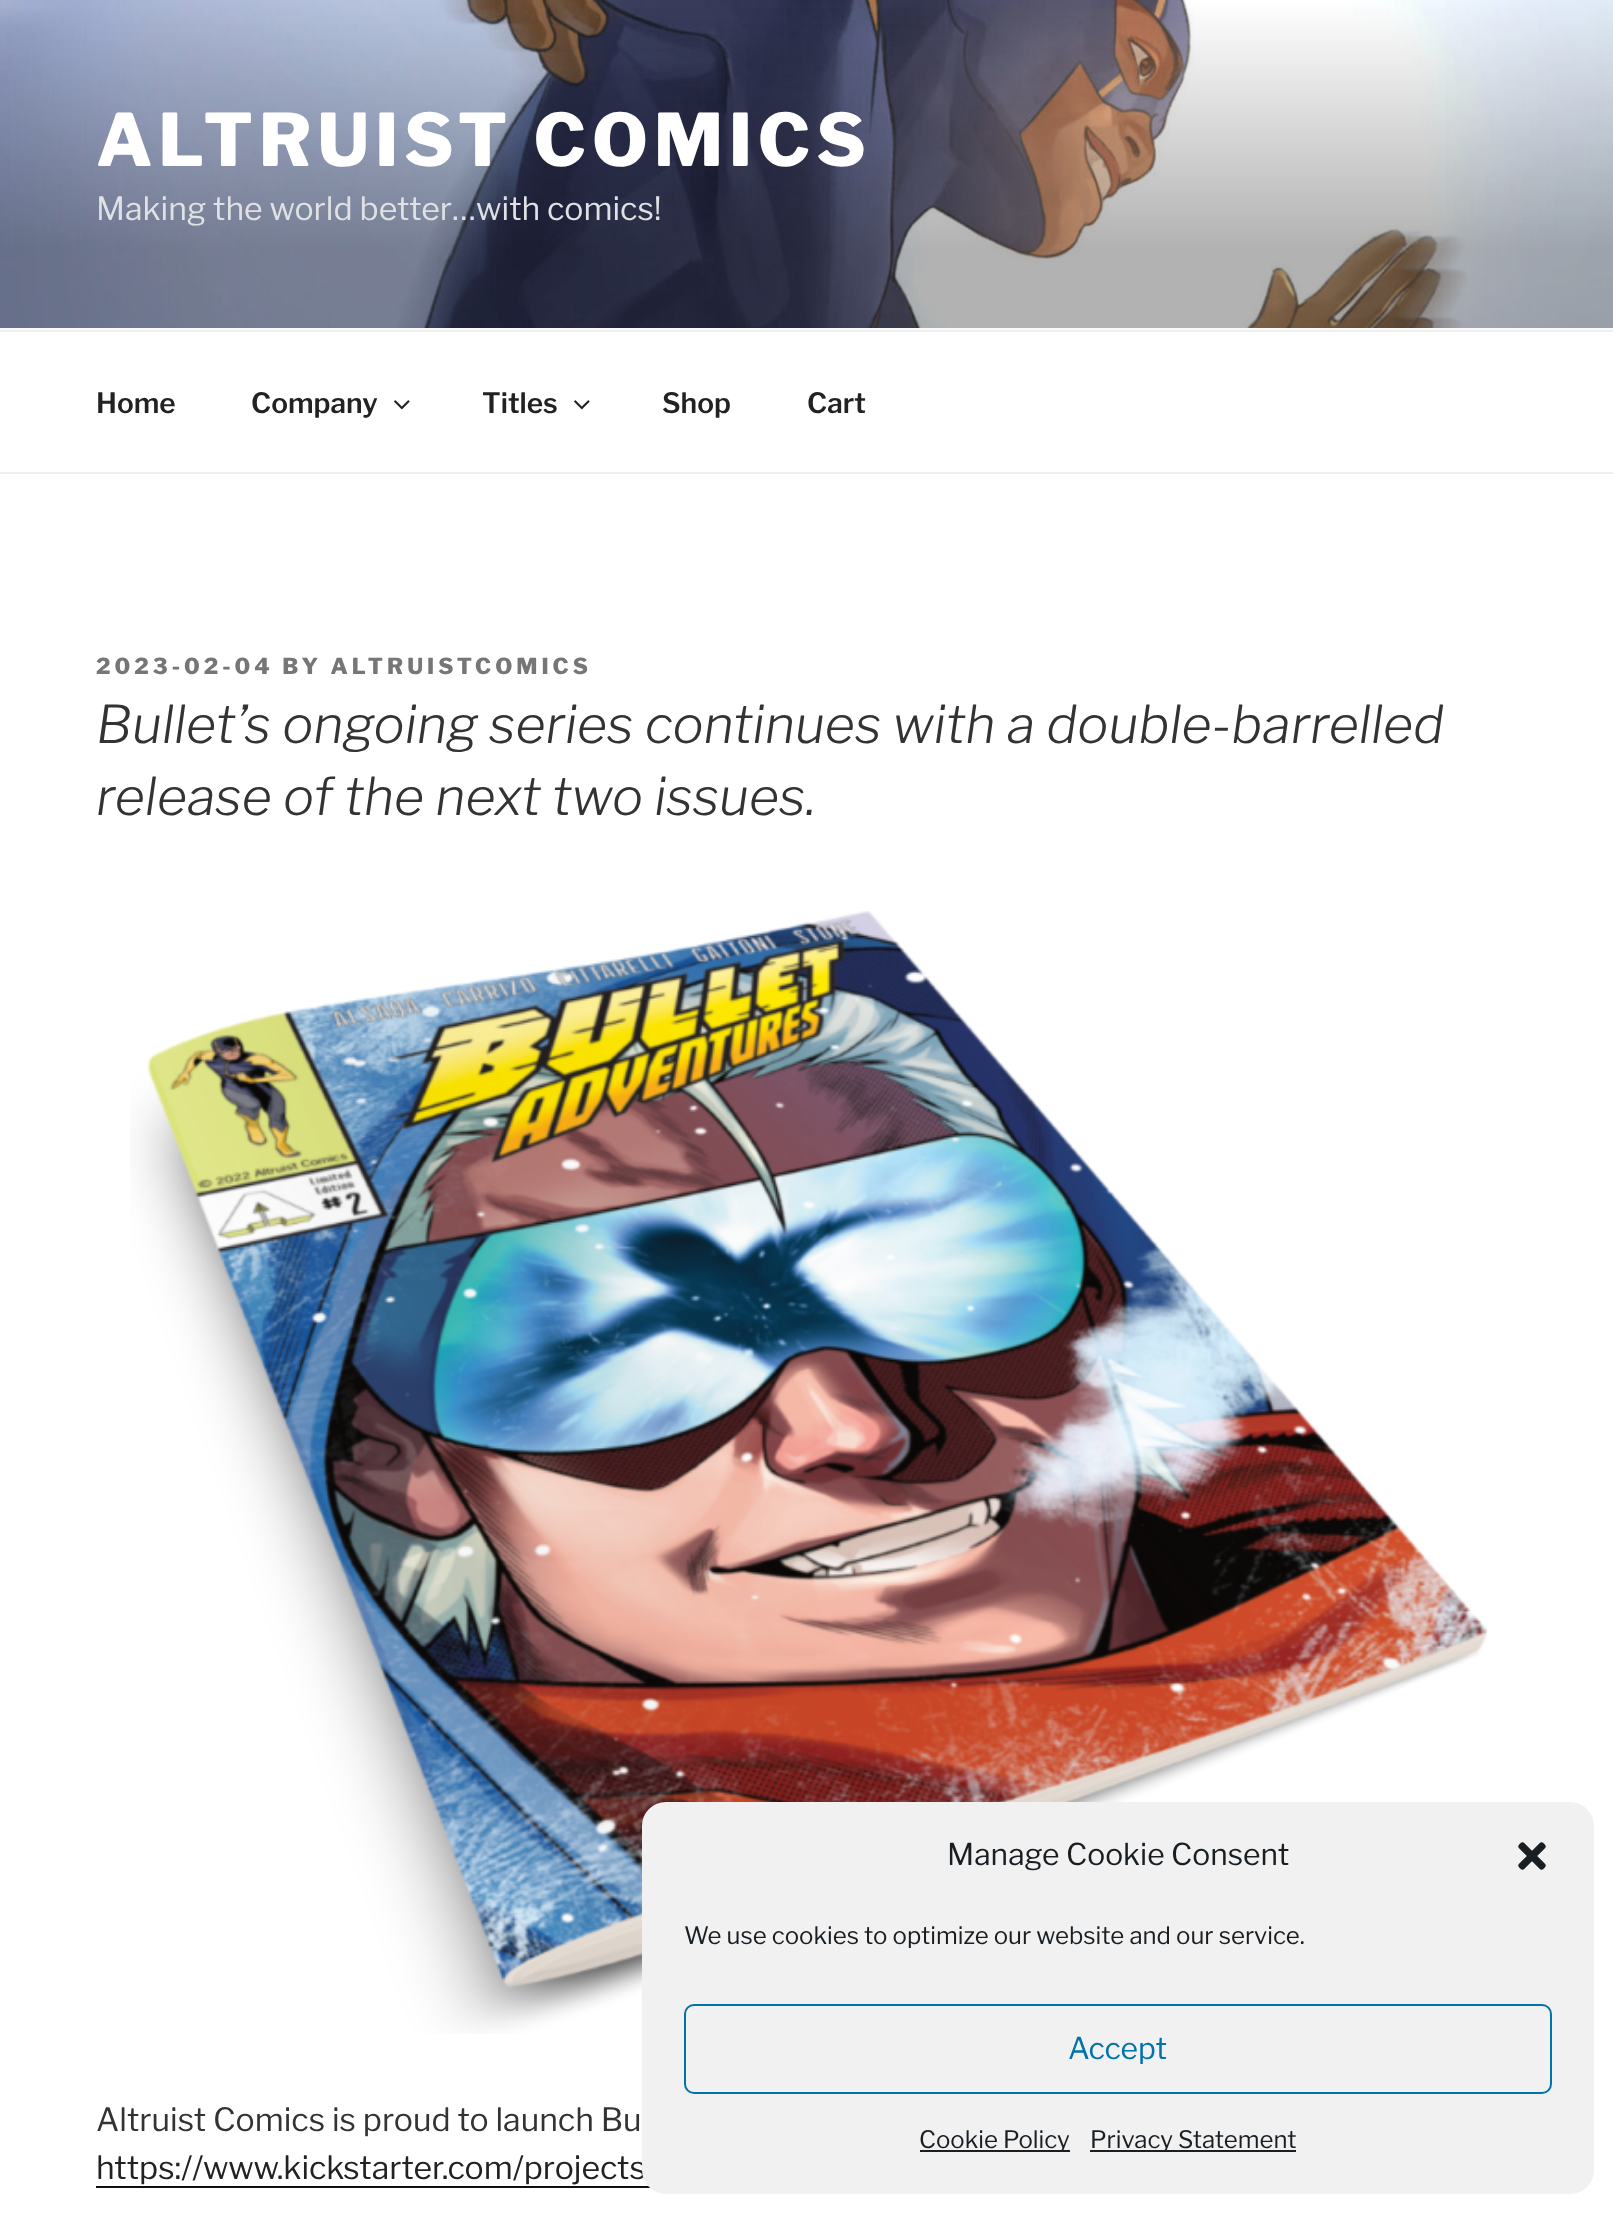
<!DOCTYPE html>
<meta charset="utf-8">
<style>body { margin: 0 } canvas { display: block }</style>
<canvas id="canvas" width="1613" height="2213"></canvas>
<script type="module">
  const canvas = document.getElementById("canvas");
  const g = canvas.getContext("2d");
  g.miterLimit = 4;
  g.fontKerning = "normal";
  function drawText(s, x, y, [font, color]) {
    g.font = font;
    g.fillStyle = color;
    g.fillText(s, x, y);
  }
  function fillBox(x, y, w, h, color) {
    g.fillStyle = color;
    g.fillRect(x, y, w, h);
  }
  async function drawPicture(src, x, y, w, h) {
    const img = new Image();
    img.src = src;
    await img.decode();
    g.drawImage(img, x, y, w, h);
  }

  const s1 = ["100 72px Libre Franklin", "#FFFFFF"];
  const s2 = ["100 32px 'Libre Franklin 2'", "#DFE1E5"];
  const s3 = ["100 28px 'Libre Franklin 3'", "#222222"];
  const s4 = ["100 22px Libre Franklin", "#767676"];
  const s5 = ["italic 100 52px Libre Franklin", "#333333"];
  const s6 = ["100 32px 'Libre Franklin 2'", "#333333"];
  const s7 = ["100 32px 'Libre Franklin 2'", "#222222"];
  const s8 = ["100 30px 'Libre Franklin 2'", "#191E23"];
  const s9 = ["100 24px 'Libre Franklin 2'", "#191E23"];
  const s10 = ["100 30px 'Libre Franklin 2'", "#0073AA"];

  fillBox(0, 0, 1613, 2213, "#FFFFFF");
  fillBox(0, 328, 1613, 2, "#FAFAFA");
  await drawPicture("pic1.png", 0, 0, 1613, 328);
  g.letterSpacing = "5.75px";
  drawText("ALTRUIST COMICS", 96, 166, s1);
  g.letterSpacing = "0px";
  drawText("Making the world better…with comics!", 96, 220, s2);
  fillBox(0, 330, 1613, 2, "#EEEEEE");
  fillBox(0, 472, 1613, 2, "#EEEEEE");
  drawText("Home", 96, 413, s3);
  drawText("Company", 251, 413, s3);
  await drawPicture("pic2.png", 394, 400, 16, 10);
  drawText("Titles", 482, 413, s3);
  await drawPicture("pic2.png", 574, 400, 16, 10);
  drawText("Shop", 662, 413, s3);
  drawText("Cart", 807, 413, s3);
  g.letterSpacing = "4px";
  drawText("2023-02-04 BY ALTRUISTCOMICS", 96, 674, s4);
  g.letterSpacing = "0px";
  drawText("Bullet’s ongoing series continues with a double-barrelled", 96, 743, s5);
  drawText("release of the next two issues.", 96, 815, s5);
  await drawPicture("pic3.png", 130, 911, 1358, 1123);
  drawText("Altruist Comics is proud to launch Bu", 96, 2131, s6);
  drawText("https://www.kickstarter.com/projects", 96, 2179, s7);
  fillBox(96, 2186, 555, 2, "#0F0F0F");
  g.fillStyle = "#F1F1F1";
  g.beginPath();
  g.roundRect(643, 1803, 950, 390, 23);
  g.fill();
  g.strokeStyle = "#F1F1F1";
  g.lineWidth = 2;
  g.stroke();
  drawText("Manage Cookie Consent", 947, 1865, s8);
  await drawPicture("pic4.png", 1518, 1842, 28, 28);
  drawText("We use cookies to optimize our website and our service.", 684, 1944, s9);
  g.beginPath();
  g.roundRect(685, 2005, 866, 88, 9);
  g.strokeStyle = "#0073AA";
  g.stroke();
  drawText("Accept", 1068, 2059, s10);
  fillBox(920, 2150, 150, 2, "#191E23");
  drawText("Cookie Policy", 919, 2148, s9);
  fillBox(1090, 2150, 206, 2, "#191E23");
  drawText("Privacy Statement", 1090, 2148, s9);
</script>
